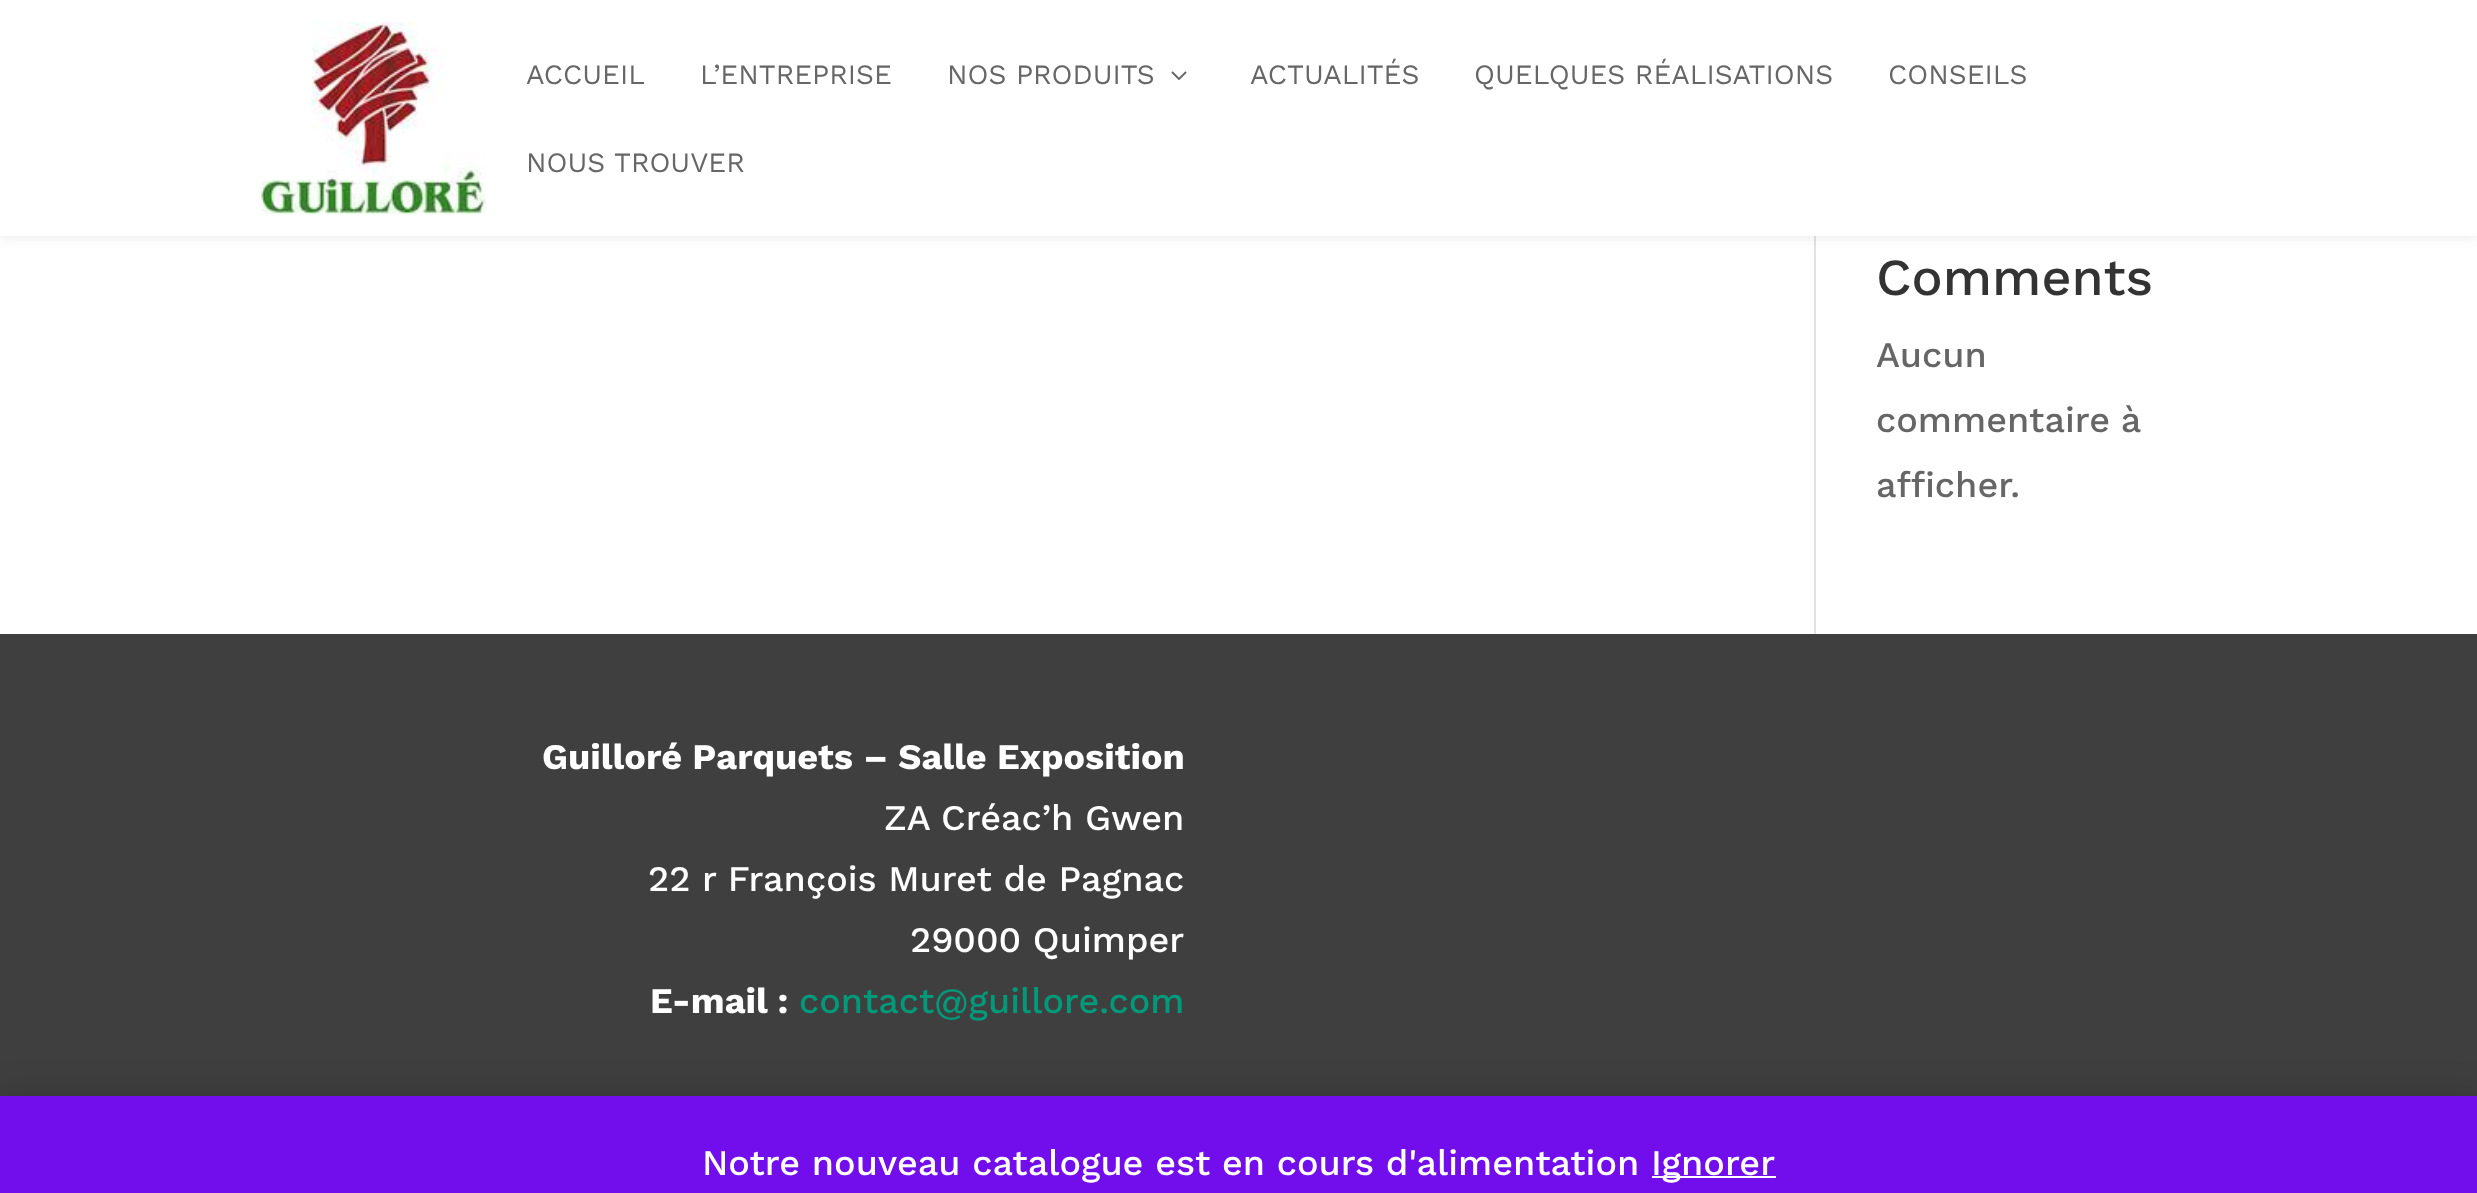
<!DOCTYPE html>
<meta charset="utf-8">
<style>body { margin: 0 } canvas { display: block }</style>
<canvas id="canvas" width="2477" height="1193"></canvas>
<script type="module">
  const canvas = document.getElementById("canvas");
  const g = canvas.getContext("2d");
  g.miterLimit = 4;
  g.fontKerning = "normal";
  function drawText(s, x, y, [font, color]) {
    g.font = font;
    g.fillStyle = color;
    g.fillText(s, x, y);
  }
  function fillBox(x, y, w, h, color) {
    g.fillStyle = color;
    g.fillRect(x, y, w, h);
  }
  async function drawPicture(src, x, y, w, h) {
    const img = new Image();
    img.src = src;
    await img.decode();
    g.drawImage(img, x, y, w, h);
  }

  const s1 = ["28px Work Sans", "#666666"];
  const s2 = ["500 52px Work Sans", "#333333"];
  const s3 = ["500 36px Work Sans", "#666666"];
  const s4 = ["bold 36px Work Sans", "#FFFFFF"];
  const s5 = ["500 36px Work Sans", "#FFFFFF"];
  const s6 = ["500 36px Work Sans", "#009A7B"];

  fillBox(0, 0, 2477, 1193, "#FFFFFF");
  fillBox(1814, 236, 2, 398, "#E2E2E2");
  g.fillStyle = "rgba(0, 0, 0, 0.1)";
  g.filter = "blur(7px)";
  g.beginPath();
  g.rect(0, 0, 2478, 236);
  g.fill();
  g.filter = "none";
  fillBox(0, 0, 2477, 236, "#FFFFFF");
  await drawPicture("pic1.png", 260, 22, 226, 192);
  drawText("ACCUEIL", 526, 84, s1);
  drawText("L’ENTREPRISE", 700, 84, s1);
  drawText("NOS PRODUITS", 947, 84, s1);
  await drawPicture("pic2.png", 1171, 71, 16, 9);
  drawText("ACTUALITÉS", 1250, 84, s1);
  drawText("QUELQUES RÉALISATIONS", 1474, 84, s1);
  drawText("CONSEILS", 1888, 84, s1);
  drawText("NOUS TROUVER", 526, 172, s1);
  drawText("Comments", 1876, 295, s2);
  drawText("Aucun", 1876, 367, s3);
  g.wordSpacing = "-1px";
  drawText("commentaire à", 1876, 432, s3);
  g.wordSpacing = "0px";
  drawText("afficher.", 1876, 497, s3);
  fillBox(0, 634, 2477, 462, "#3F3F3F");
  drawText("Guilloré Parquets – Salle Exposition", 542, 769, s4);
  drawText("ZA Créac’h Gwen", 884, 830, s5);
  drawText("22 r François Muret de Pagnac", 648, 891, s5);
  drawText("29000 Quimper", 910, 952, s5);
  drawText("E-mail :", 650, 1013, s4);
  drawText("contact@guillore.com", 799, 1013, s6);
  g.fillStyle = "rgba(0, 0, 0, 0.2)";
  g.filter = "blur(18px)";
  g.beginPath();
  g.rect(0, 1098, 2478, 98);
  g.fill();
  g.filter = "none";
  fillBox(0, 1096, 2477, 97, "#720EEC");
  drawText("Notre nouveau catalogue est en cours d'alimentation", 702, 1175, s5);
  fillBox(1652, 1176, 124, 2, "#FCFBFE");
  drawText("Ignorer", 1651, 1175, s5);
</script>
